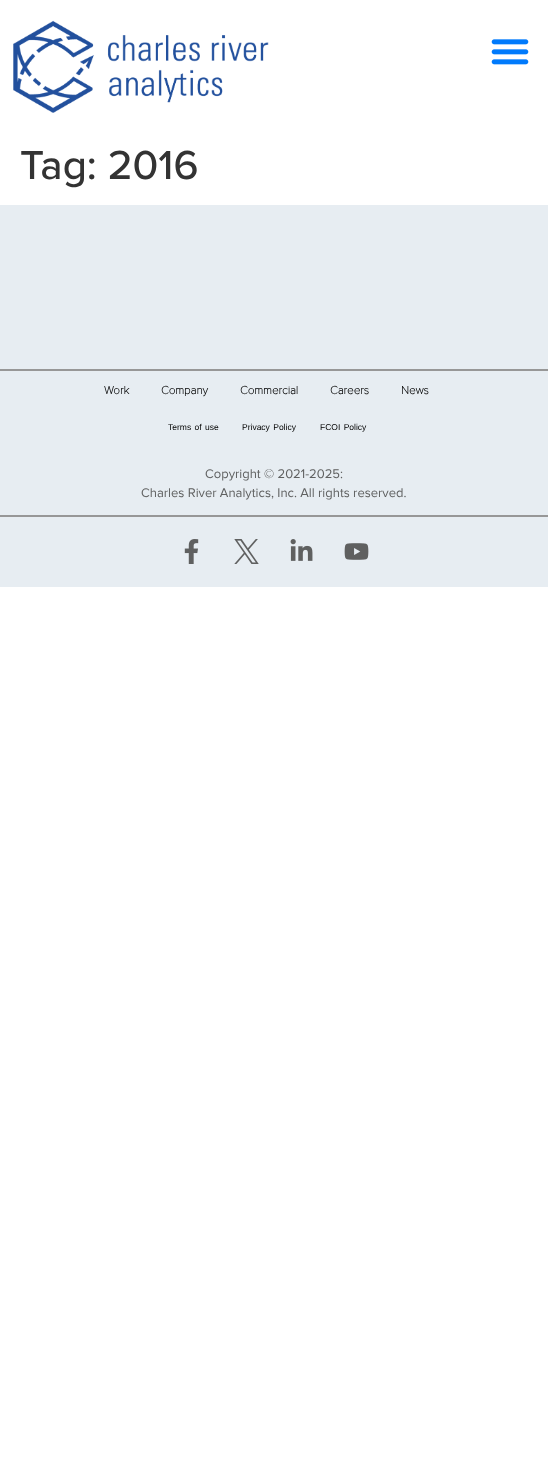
<!DOCTYPE html>
<meta charset="utf-8">
<style>body { margin: 0 } canvas { display: block }</style>
<canvas id="canvas" width="548" height="1478"></canvas>
<script type="module">
  const canvas = document.getElementById("canvas");
  const g = canvas.getContext("2d");
  g.miterLimit = 4;
  g.fontKerning = "normal";
  function drawText(s, x, y, [font, color]) {
    g.font = font;
    g.fillStyle = color;
    g.fillText(s, x, y);
  }
  function fillBox(x, y, w, h, color) {
    g.fillStyle = color;
    g.fillRect(x, y, w, h);
  }
  async function drawPicture(src, x, y, w, h) {
    const img = new Image();
    img.src = src;
    await img.decode();
    g.drawImage(img, x, y, w, h);
  }

  const s1 = ["500 42px Proxima Nova", "#333333"];
  const s2 = ["bold 11.5px Proxima Nova", "#000000"];
  const s3 = ["8.5px Liberation Sans", "#000000"];
  const s4 = ["13px Proxima Nova", "#5F6060"];

  fillBox(0, 0, 548, 1478, "#FFFFFF");
  await drawPicture("pic1.png", 13, 20, 256, 93);
  await drawPicture("pic2.png", 491, 39, 38, 26);
  drawText("Tag: 2016", 20, 179, s1);
  fillBox(0, 205, 548, 164, "#E7EDF2");
  fillBox(0, 371, 548, 144, "#E7EDF2");
  fillBox(0, 369, 548, 2, "#979797");
  fillBox(0, 515, 548, 2, "#979797");
  drawText("Work", 104, 394, s2);
  drawText("Company", 161, 394, s2);
  drawText("Commercial", 240, 394, s2);
  drawText("Careers", 330, 394, s2);
  drawText("News", 401, 394, s2);
  g.wordSpacing = "1px";
  drawText("Terms of use", 168, 430, s3);
  drawText("Privacy Policy", 242, 430, s3);
  drawText("FCOI Policy", 320, 430, s3);
  g.wordSpacing = "0px";
  drawText("Copyright © 2021-2025:", 205, 478, s4);
  drawText("Charles River Analytics, Inc. All rights reserved.", 141, 497, s4);
  fillBox(0, 517, 548, 70, "#E7EDF2");
  await drawPicture("pic3.png", 184, 539, 15, 25);
  await drawPicture("pic4.png", 234, 539, 25, 25);
  await drawPicture("pic5.png", 290, 539, 23, 22);
  await drawPicture("pic6.png", 344, 543, 25, 17);
</script>
